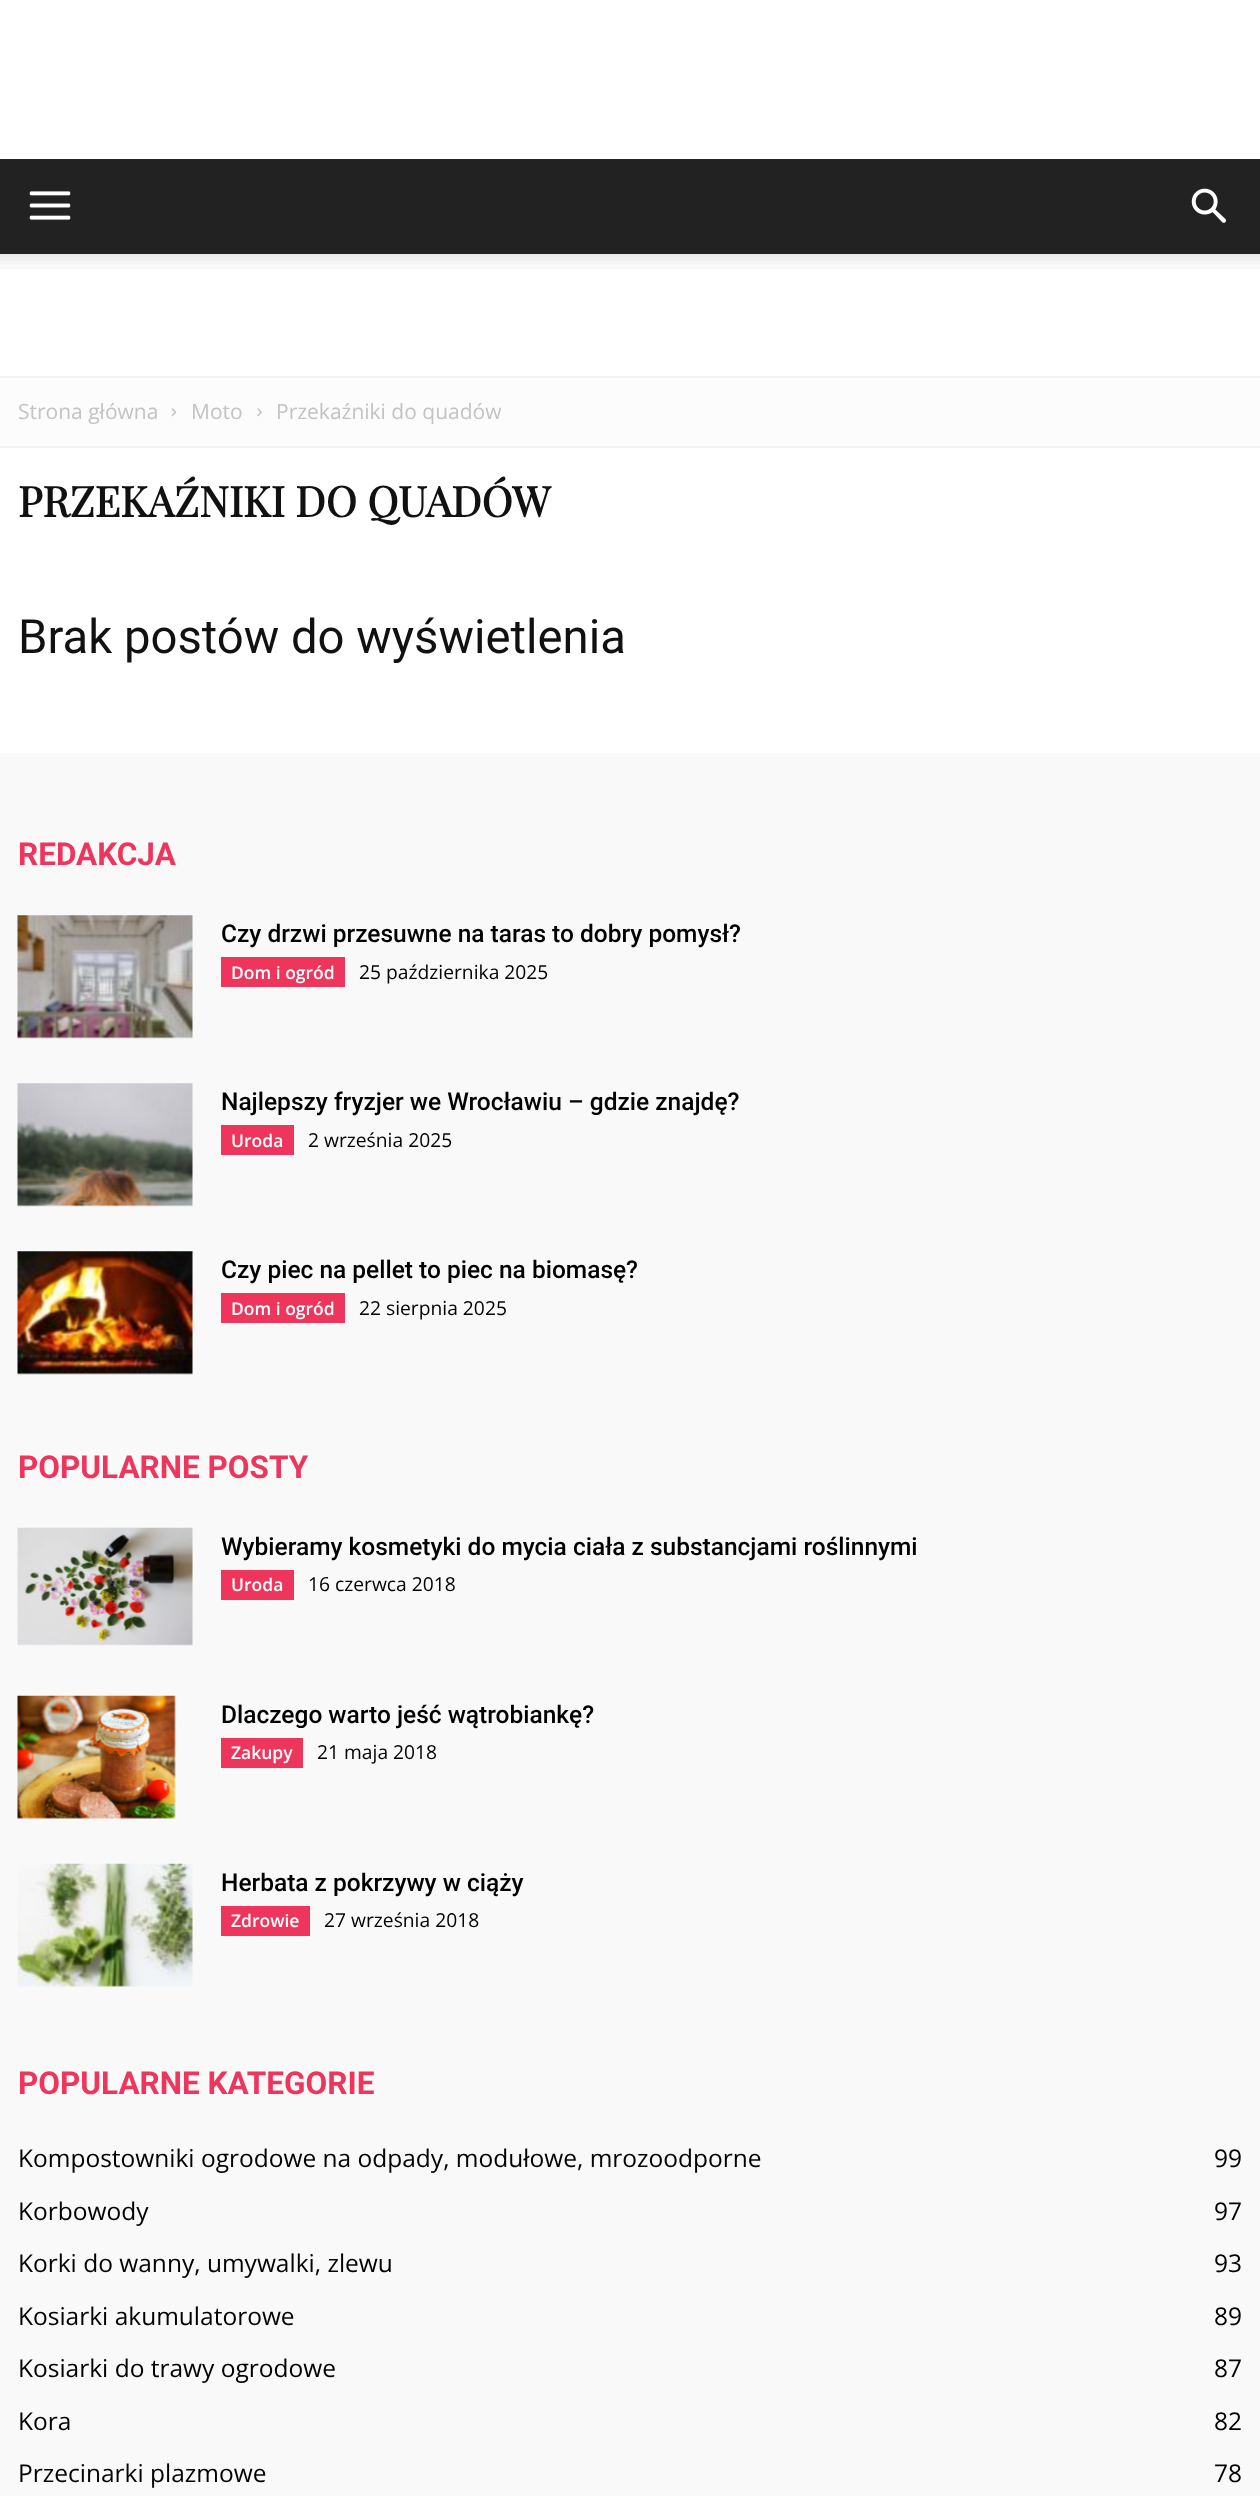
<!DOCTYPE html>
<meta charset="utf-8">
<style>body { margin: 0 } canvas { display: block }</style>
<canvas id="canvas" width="1260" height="2496"></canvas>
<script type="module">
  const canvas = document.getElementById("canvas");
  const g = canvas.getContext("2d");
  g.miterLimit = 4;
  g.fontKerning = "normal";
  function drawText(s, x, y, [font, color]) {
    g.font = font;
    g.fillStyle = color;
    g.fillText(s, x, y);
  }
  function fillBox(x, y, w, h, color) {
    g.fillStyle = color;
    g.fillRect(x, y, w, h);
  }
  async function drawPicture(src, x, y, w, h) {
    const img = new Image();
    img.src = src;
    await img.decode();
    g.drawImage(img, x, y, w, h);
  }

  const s1 = ["21px Open Sans", "#C3C3C3"];
  const s2 = ["bold 42px Playfair Display", "#111111"];
  const s3 = ["47.25px Roboto", "#111111"];
  const s4 = ["bold 31.5px Roboto", "#EE365C"];
  const s5 = ["500 24.5px Roboto", "#000000"];
  const s6 = ["600 17.5px Open Sans", "#FFFFFF"];
  const s7 = ["19.25px Open Sans", "#000000"];
  const s8 = ["24.5px Open Sans", "#000000"];

  fillBox(0, 0, 1260, 2496, "#FFFFFF");
  fillBox(0, 376, 1260, 2, "#F2F2F2");
  fillBox(0, 159, 1260, 95, "#222222");
  await drawPicture("pic1.png", 29, 191, 42, 29);
  await drawPicture("pic2.png", 1191, 188, 36, 35);
  await drawPicture("pic3.png", 0, 254, 1260, 15);
  fillBox(0, 378, 1260, 68, "#FCFCFC");
  fillBox(0, 446, 1260, 2, "#F2F2F2");
  drawText("Strona główna", 18, 419, s1);
  await drawPicture("pic4.png", 171, 408, 6, 9);
  drawText("Moto", 191, 419, s1);
  await drawPicture("pic5.png", 257, 408, 5, 9);
  drawText("Przekaźniki do quadów", 276, 419, s1);
  drawText("PRZEKAŹNIKI DO QUADÓW", 18, 517, s2);
  drawText("Brak postów do wyświetlenia", 18, 653, s3);
  fillBox(0, 753, 1260, 1743, "#F9F9F9");
  drawText("REDAKCJA", 18, 865, s4);
  await drawPicture("pic6.png", 17, 915, 176, 124);
  drawText("Czy drzwi przesuwne na taras to dobry pomysł?", 221, 942, s5);
  fillBox(221, 957, 124, 30, "#EE365C");
  drawText("Dom i ogród", 231, 979, s6);
  drawText("25 października 2025", 359, 979, s7);
  await drawPicture("pic7.png", 17, 1083, 176, 124);
  drawText("Najlepszy fryzjer we Wrocławiu – gdzie znajdę?", 221, 1110, s5);
  fillBox(221, 1125, 73, 30, "#EE365C");
  drawText("Uroda", 231, 1147, s6);
  drawText("2 września 2025", 308, 1147, s7);
  await drawPicture("pic8.png", 17, 1251, 176, 124);
  drawText("Czy piec na pellet to piec na biomasę?", 221, 1278, s5);
  fillBox(221, 1293, 124, 30, "#EE365C");
  drawText("Dom i ogród", 231, 1315, s6);
  drawText("22 sierpnia 2025", 359, 1315, s7);
  drawText("POPULARNE POSTY", 18, 1478, s4);
  await drawPicture("pic9.png", 17, 1527, 176, 119);
  drawText("Wybieramy kosmetyki do mycia ciała z substancjami roślinnymi", 221, 1555, s5);
  fillBox(221, 1570, 73, 30, "#EE365C");
  drawText("Uroda", 231, 1591, s6);
  drawText("16 czerwca 2018", 308, 1591, s7);
  await drawPicture("pic10.png", 17, 1695, 159, 124);
  drawText("Dlaczego warto jeść wątrobiankę?", 221, 1723, s5);
  fillBox(221, 1738, 82, 30, "#EE365C");
  drawText("Zakupy", 231, 1759, s6);
  drawText("21 maja 2018", 317, 1759, s7);
  await drawPicture("pic11.png", 17, 1863, 176, 124);
  drawText("Herbata z pokrzywy w ciąży", 221, 1891, s5);
  fillBox(221, 1906, 89, 30, "#EE365C");
  drawText("Zdrowie", 231, 1927, s6);
  drawText("27 września 2018", 324, 1927, s7);
  drawText("POPULARNE KATEGORIE", 18, 2094, s4);
  drawText("Kompostowniki ogrodowe na odpady, modułowe, mrozoodporne", 18, 2167, s8);
  drawText("99", 1214, 2167, s8);
  drawText("Korbowody", 18, 2220, s8);
  drawText("97", 1214, 2220, s8);
  drawText("Korki do wanny, umywalki, zlewu", 18, 2272, s8);
  drawText("93", 1214, 2272, s8);
  drawText("Kosiarki akumulatorowe", 18, 2325, s8);
  drawText("89", 1214, 2325, s8);
  drawText("Kosiarki do trawy ogrodowe", 18, 2377, s8);
  drawText("87", 1214, 2377, s8);
  drawText("Kora", 18, 2430, s8);
  drawText("82", 1214, 2430, s8);
  drawText("Przecinarki plazmowe", 18, 2482, s8);
  drawText("78", 1214, 2482, s8);
</script>
